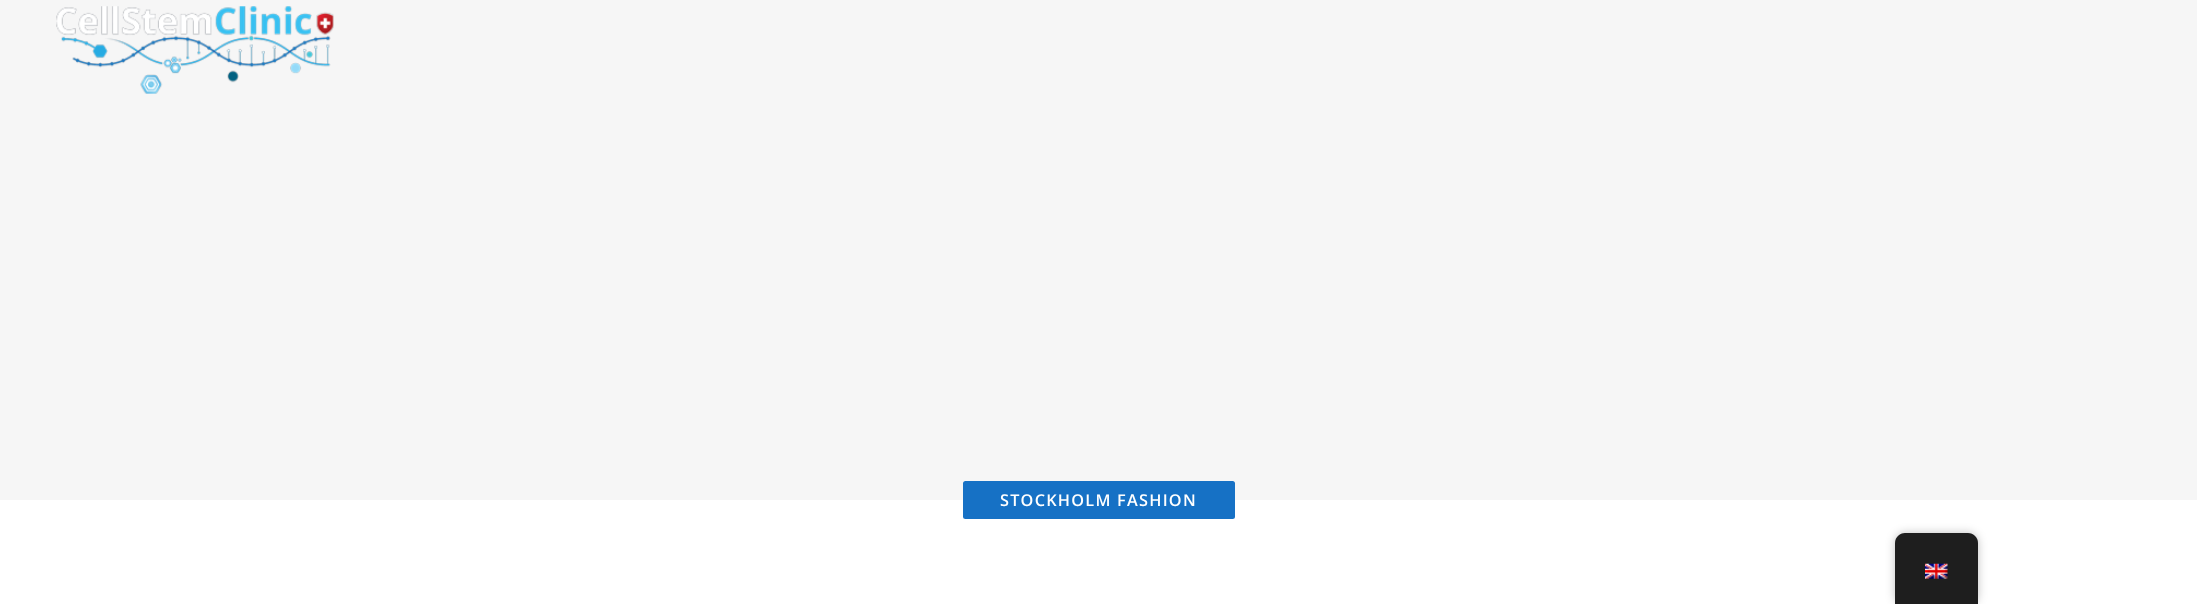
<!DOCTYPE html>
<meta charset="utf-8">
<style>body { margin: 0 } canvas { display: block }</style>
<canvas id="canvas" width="2197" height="604"></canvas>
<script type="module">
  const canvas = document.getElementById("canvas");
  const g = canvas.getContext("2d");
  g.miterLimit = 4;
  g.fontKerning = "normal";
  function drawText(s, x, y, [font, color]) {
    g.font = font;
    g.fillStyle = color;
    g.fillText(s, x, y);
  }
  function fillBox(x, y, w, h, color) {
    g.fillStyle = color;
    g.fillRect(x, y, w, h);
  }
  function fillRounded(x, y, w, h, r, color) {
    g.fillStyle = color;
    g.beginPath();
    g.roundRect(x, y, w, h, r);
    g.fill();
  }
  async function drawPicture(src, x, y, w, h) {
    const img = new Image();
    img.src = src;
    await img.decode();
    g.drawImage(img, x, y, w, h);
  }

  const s1 = ["600 16.25px Open Sans", "#FFFFFF"];

  fillBox(0, 0, 2197, 604, "#FFFFFF");
  fillBox(0, 0, 2197, 500, "#F6F6F6");
  await drawPicture("pic1.png", 56, 6, 278, 88);
  fillRounded(963, 481, 272, 38, 2.5, "#1671C5");
  g.letterSpacing = "1.25px";
  drawText("STOCKHOLM FASHION", 1000, 506, s1);
  g.fillStyle = "rgba(0, 0, 0, 0.25)";
  g.filter = "blur(5px)";
  g.beginPath();
  g.roundRect(1895, 533, 83, 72, 10);
  g.fill();
  g.filter = "none";
  g.fillStyle = "#1E1E1E";
  g.beginPath();
  g.moveTo(1905, 533);
  g.lineTo(1968, 533);
  g.bezierCurveTo(1973.5, 533, 1978, 537.5, 1978, 543);
  g.lineTo(1978, 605);
  g.lineTo(1895, 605);
  g.lineTo(1895, 543);
  g.bezierCurveTo(1895, 537.5, 1899.5, 533, 1905, 533);
  g.closePath();
  g.fill();
  await drawPicture("pic2.png", 1925, 563, 23, 16);
</script>
